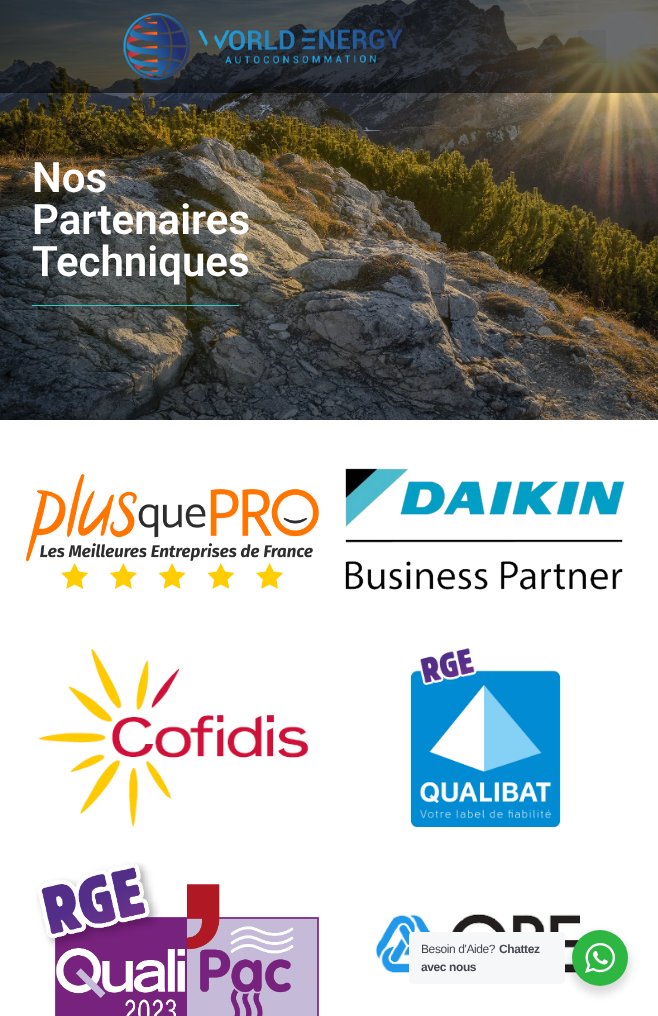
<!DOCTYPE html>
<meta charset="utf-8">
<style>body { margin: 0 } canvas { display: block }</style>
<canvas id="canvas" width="658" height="1016"></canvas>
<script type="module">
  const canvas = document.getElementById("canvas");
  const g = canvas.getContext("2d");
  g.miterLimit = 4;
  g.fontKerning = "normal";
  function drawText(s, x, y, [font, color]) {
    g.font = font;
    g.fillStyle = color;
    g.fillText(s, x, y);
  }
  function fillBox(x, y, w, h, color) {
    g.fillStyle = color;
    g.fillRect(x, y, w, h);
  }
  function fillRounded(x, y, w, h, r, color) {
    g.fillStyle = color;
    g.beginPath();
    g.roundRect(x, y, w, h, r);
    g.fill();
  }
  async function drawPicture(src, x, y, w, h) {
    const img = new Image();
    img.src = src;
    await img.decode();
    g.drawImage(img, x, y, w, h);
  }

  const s1 = ["600 42px Roboto", "#FFFFFF"];
  const s2 = ["12px Liberation Sans", "#43474E"];
  const s3 = ["bold 12px Liberation Sans", "#43474E"];

  fillBox(0, 0, 658, 1016, "#FFFFFF");
  await drawPicture("pic2.png", 0, 0, 658, 420);
  fillBox(0, 0, 658, 93, "rgba(0, 0, 0, 0.58)");
  await drawPicture("pic1.png", 123, 13, 280, 68);
  fillBox(578, 30, 28, 33, "rgba(0, 0, 0, 0.05)");
  drawText("Nos", 32, 192, s1);
  drawText("Partenaires", 32, 234, s1);
  drawText("Techniques", 32, 276, s1);
  fillBox(32, 305, 207, 1, "#33CCCC");
  await drawPicture("pic3.png", 26, 474, 293, 115);
  await drawPicture("pic4.png", 345, 468, 280, 122);
  await drawPicture("pic5.png", 38, 648, 271, 179);
  await drawPicture("pic6.png", 410, 648, 151, 179);
  await drawPicture("pic7.png", 36, 862, 283, 154);
  await drawPicture("pic8.png", 373, 913, 208, 61);
  g.fillStyle = "rgba(0, 0, 0, 0.14)";
  g.filter = "blur(4px)";
  g.beginPath();
  g.roundRect(570, 934, 60, 60, 30);
  g.fill();
  g.filter = "none";
  fillRounded(409, 932, 156, 52, 4, "#F5F7F9");
  g.letterSpacing = "-0.4px";
  drawText("Besoin d'Aide?", 421, 953, s2);
  drawText("Chattez", 499, 953, s3);
  drawText("avec nous", 421, 971, s3);
  g.fillStyle = "#2DB742";
  g.beginPath();
  g.arc(600, 958, 28, 0, Math.PI * 2);
  g.fill();
  await drawPicture("pic9.png", 585, 943, 30, 30);
</script>
